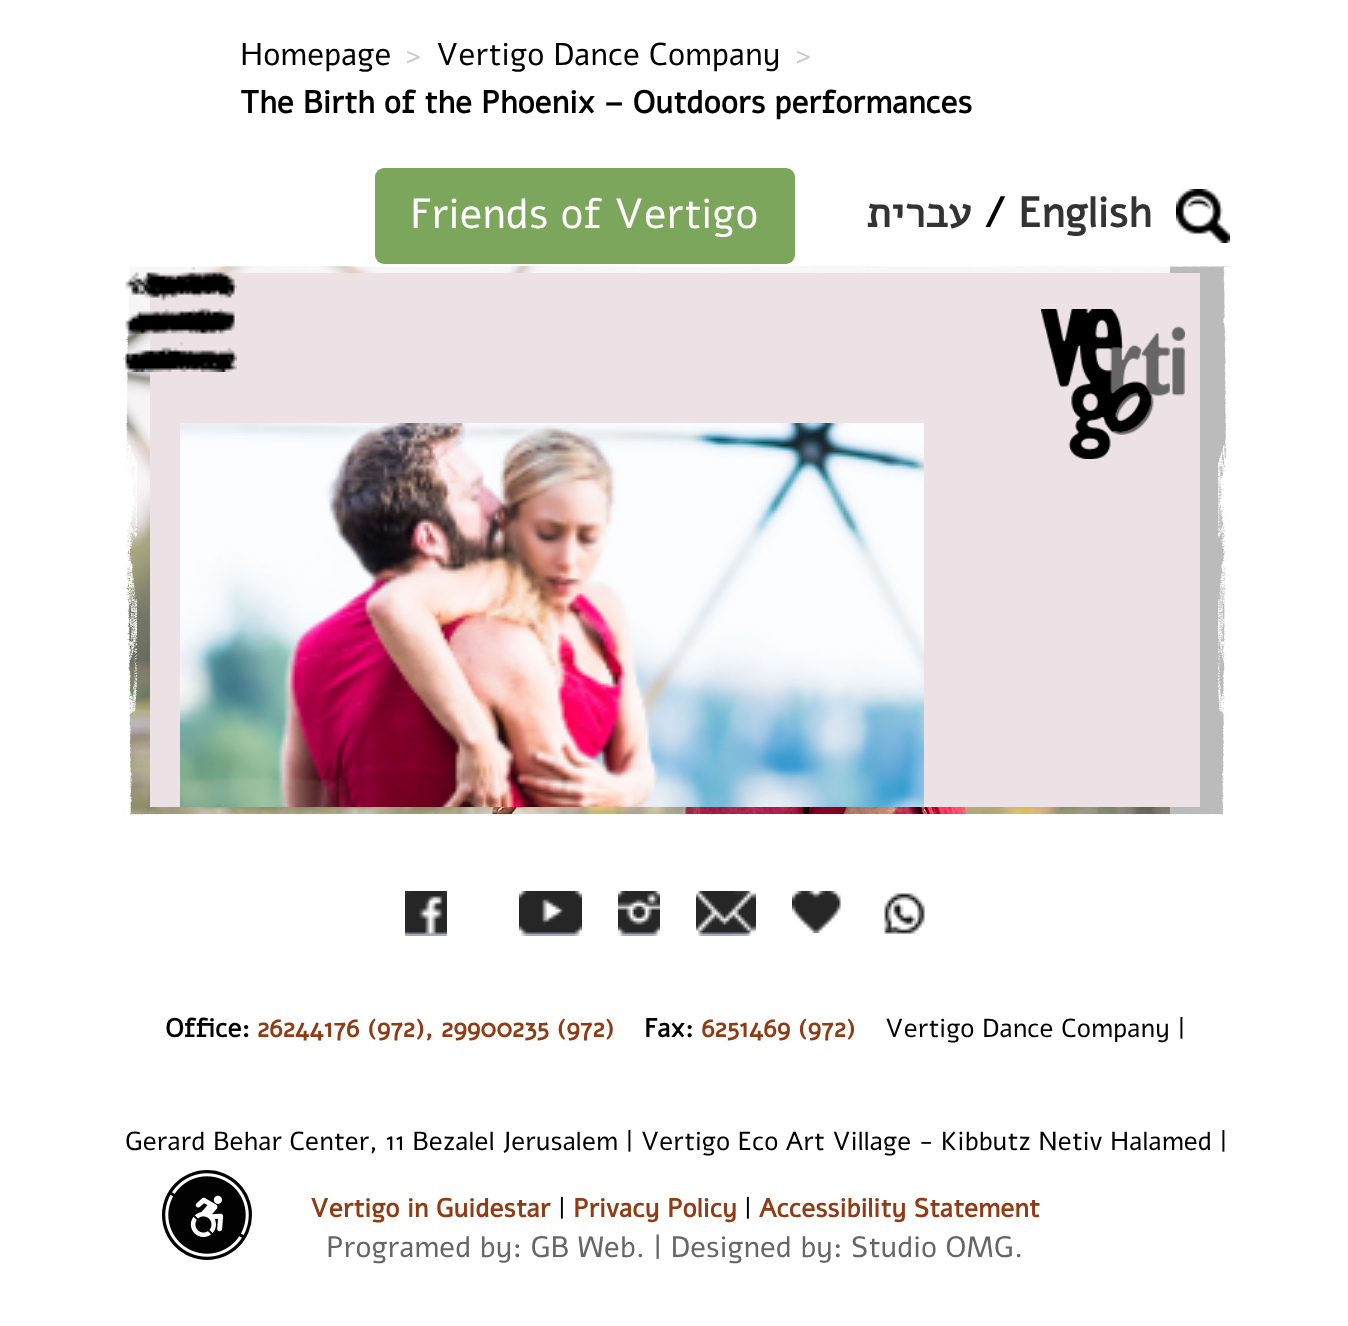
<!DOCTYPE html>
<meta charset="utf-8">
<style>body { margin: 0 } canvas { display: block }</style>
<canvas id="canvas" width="1348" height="1326"></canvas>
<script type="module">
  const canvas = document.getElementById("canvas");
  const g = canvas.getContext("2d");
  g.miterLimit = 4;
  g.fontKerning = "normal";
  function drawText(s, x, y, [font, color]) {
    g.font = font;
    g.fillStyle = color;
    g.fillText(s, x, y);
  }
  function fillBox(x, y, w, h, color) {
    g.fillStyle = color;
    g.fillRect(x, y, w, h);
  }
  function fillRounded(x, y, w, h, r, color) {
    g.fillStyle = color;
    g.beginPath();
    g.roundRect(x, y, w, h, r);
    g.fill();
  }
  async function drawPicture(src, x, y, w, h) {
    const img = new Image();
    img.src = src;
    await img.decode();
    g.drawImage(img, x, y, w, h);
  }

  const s1 = ["31.5px Alef", "#000000"];
  const s2 = ["31.5px Alef", "#CCCCCC"];
  const s3 = ["bold 31.5px Alef", "#000000"];
  const s4 = ["42px Alef", "#FFFFFF"];
  const s5 = ["bold 42px Alef", "#333333"];
  const s6 = ["bold 42px Alef", "#000000"];
  const s7 = ["bold 26.05px Alef", "#000000"];
  const s8 = ["bold 26.05px Alef", "#913B15"];
  const s9 = ["26.05px Alef", "#000000"];
  const s10 = ["29.4px Alef", "#666666"];

  fillBox(0, 0, 1348, 1326, "#BBBBBB");
  fillBox(0, 0, 1348, 264, "#FFFFFF");
  drawText("Homepage", 240, 65, s1);
  drawText(">", 406, 65, s2);
  drawText("Vertigo Dance Company", 436, 65, s1);
  drawText(">", 796, 65, s2);
  drawText("The Birth of the Phoenix – Outdoors performances", 240, 113, s3);
  fillRounded(375, 168, 420, 96, 9, "#7BA65B");
  drawText("Friends of Vertigo", 410, 228, s4);
  g.direction = "rtl";
  drawText("עברית", 971, 227, s5);
  g.direction = "ltr";
  drawText("/", 983, 227, s6);
  drawText("English", 1018, 227, s5);
  await drawPicture("pic1.png", 1176, 189, 54, 54);
  fillBox(1230, 264, 118, 552, "#FFFFFF");
  fillBox(0, 264, 120, 552, "#FFFFFF");
  await drawPicture("pic2.png", 121, 266, 1049, 549);
  await drawPicture("pic3.png", 120, 264, 1110, 552);
  fillBox(150, 273, 1050, 534, "#ECE2E6");
  await drawPicture("pic4.png", 123, 267, 114, 105);
  await drawPicture("pic5.png", 180, 423, 744, 384);
  await drawPicture("pic6.png", 180, 778, 153, 29);
  await drawPicture("pic7.png", 183, 778, 165, 29);
  await drawPicture("pic8.png", 1041, 309, 144, 150);
  fillBox(0, 816, 1348, 510, "#FFFFFF");
  await drawPicture("pic9.png", 405, 891, 42, 45);
  await drawPicture("pic10.png", 519, 891, 63, 45);
  await drawPicture("pic11.png", 618, 891, 42, 45);
  await drawPicture("pic12.png", 696, 891, 60, 45);
  await drawPicture("pic13.png", 792, 891, 49, 42);
  await drawPicture("pic14.png", 884, 893, 41, 41);
  drawText("Office:", 165, 1037, s7);
  drawText("26244176 (972), 29900235 (972)", 257, 1037, s8);
  drawText("Fax:", 644, 1037, s7);
  drawText("6251469 (972)", 701, 1037, s8);
  drawText("Vertigo Dance Company |", 885, 1037, s9);
  drawText("Gerard Behar Center, 11 Bezalel Jerusalem | Vertigo Eco Art Village - Kibbutz Netiv Halamed |", 125, 1150, s9);
  drawText("Vertigo in Guidestar", 310, 1217, s8);
  drawText("|", 558, 1217, s9);
  drawText("Privacy Policy", 573, 1217, s8);
  drawText("|", 744, 1217, s9);
  drawText("Accessibility Statement", 759, 1217, s8);
  drawText("Programed by: GB Web. | Designed by: Studio OMG.", 326, 1257, s10);
  g.fillStyle = "#020202";
  g.beginPath();
  g.arc(207, 1215, 45, 0, Math.PI * 2);
  g.fill();
  await drawPicture("pic15.png", 165, 1173, 84, 84);
</script>
